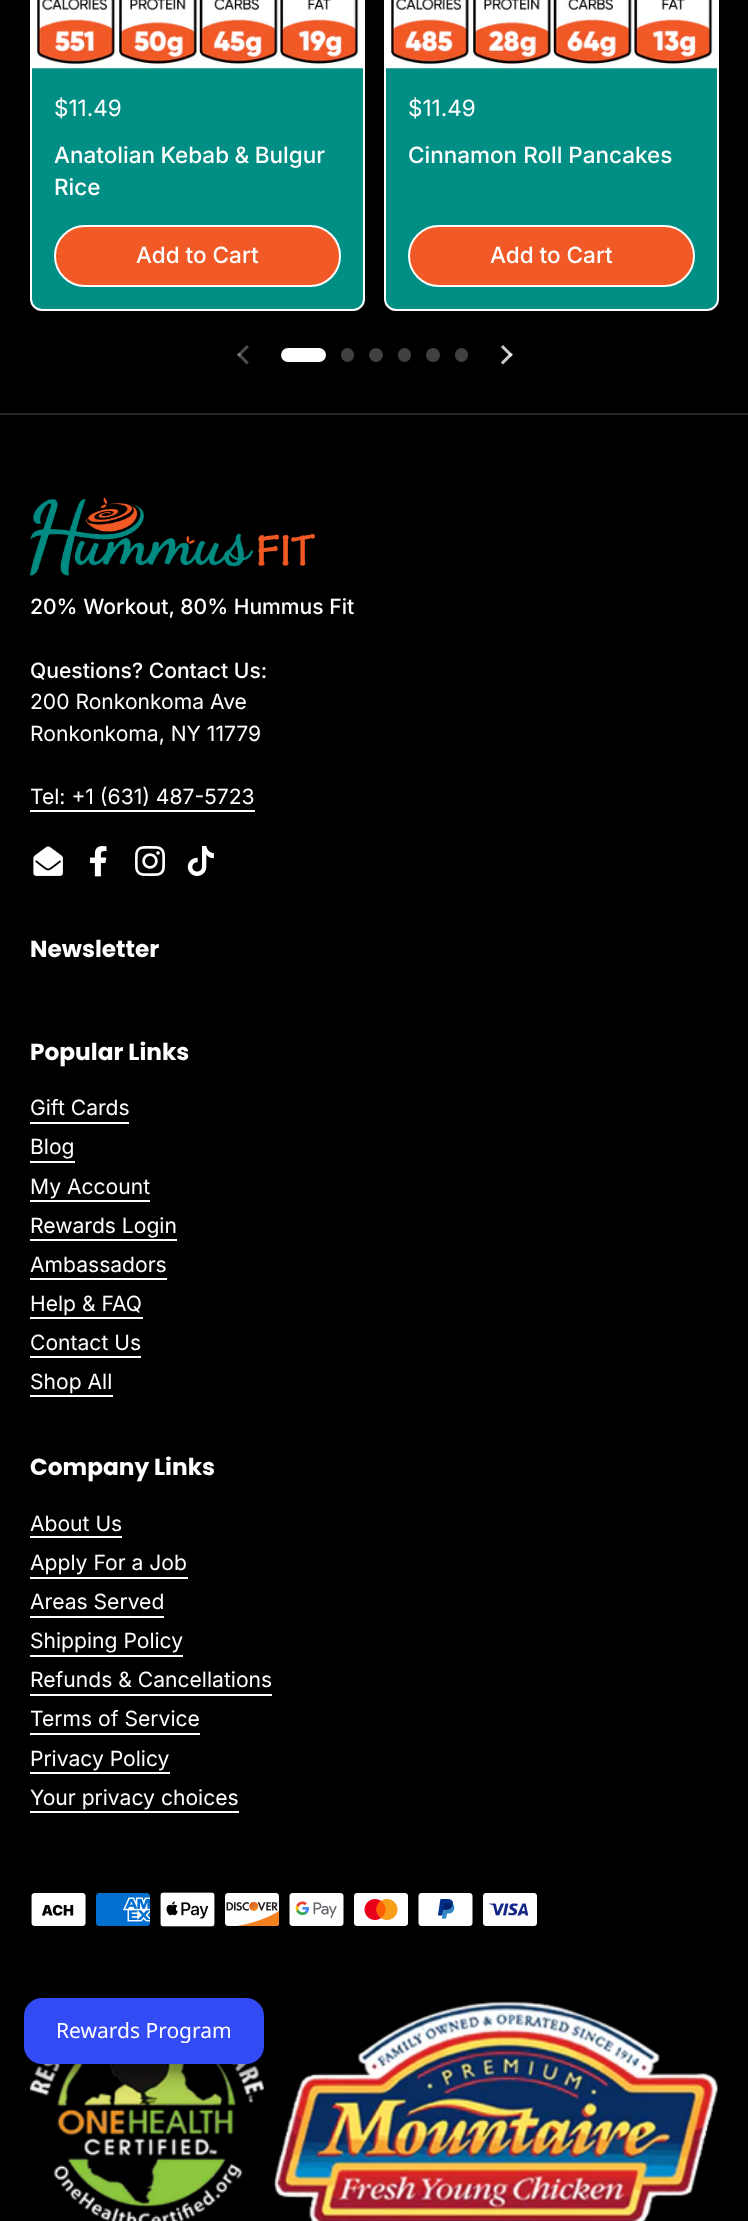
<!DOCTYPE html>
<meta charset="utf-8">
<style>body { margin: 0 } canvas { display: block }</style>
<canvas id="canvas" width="748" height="2221"></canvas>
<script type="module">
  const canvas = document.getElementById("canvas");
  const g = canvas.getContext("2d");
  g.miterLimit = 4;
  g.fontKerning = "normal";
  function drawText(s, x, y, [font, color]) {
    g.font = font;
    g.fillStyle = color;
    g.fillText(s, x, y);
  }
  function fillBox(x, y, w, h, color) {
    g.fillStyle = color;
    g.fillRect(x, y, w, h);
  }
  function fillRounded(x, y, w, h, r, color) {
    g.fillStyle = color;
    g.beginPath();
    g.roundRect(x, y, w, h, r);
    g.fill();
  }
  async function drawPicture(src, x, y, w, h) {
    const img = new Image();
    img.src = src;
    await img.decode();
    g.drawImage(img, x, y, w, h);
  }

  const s1 = ["22.5px Inter", "#FFFFFF"];
  const s2 = ["500 22.5px Inter", "#FFFFFF"];
  const s3 = ["500 21.1px Inter", "#FFFFFF"];
  const s4 = ["21.1px Inter", "#FFFFFF"];
  const s5 = ["bold 23.25px Poppins", "#FFFFFF"];
  const s6 = ["21px Noto Sans", "#FFFFFF"];

  fillBox(0, 0, 748, 2221, "#000000");
  g.fillStyle = "#008E85";
  g.beginPath();
  g.roundRect(31, -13, 333, 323, 11);
  g.fill();
  g.strokeStyle = "#FFFFFF";
  g.lineWidth = 2;
  g.stroke();
  await drawPicture("pic1.png", 32, 0, 331, 69);
  drawText("$11.49", 54, 116, s1);
  g.wordSpacing = "-0.5px";
  drawText("Anatolian Kebab & Bulgur", 54, 163, s2);
  g.wordSpacing = "0px";
  drawText("Rice", 54, 195, s2);
  g.fillStyle = "#F15A26";
  g.beginPath();
  g.roundRect(55, 226, 285, 60, 30);
  g.fill();
  g.stroke();
  drawText("Add to Cart", 136, 263, s2);
  g.fillStyle = "#008E85";
  g.beginPath();
  g.roundRect(385, -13, 333, 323, 11);
  g.fill();
  g.stroke();
  await drawPicture("pic2.png", 386, 0, 331, 69);
  drawText("$11.49", 408, 116, s1);
  drawText("Cinnamon Roll Pancakes", 408, 163, s2);
  g.fillStyle = "#F15A26";
  g.beginPath();
  g.roundRect(409, 226, 285, 60, 30);
  g.fill();
  g.stroke();
  drawText("Add to Cart", 490, 263, s2);
  await drawPicture("pic3.png", 237, 345, 12, 20);
  fillRounded(281, 348, 45, 14, 7, "#FFFFFF");
  fillRounded(341, 348, 13, 14, 6.5, "#404040");
  g.beginPath();
  g.arc(376, 355, 7, 0, Math.PI * 2);
  g.fill();
  fillRounded(398, 348, 13, 14, 6.5, "#404040");
  g.beginPath();
  g.arc(433, 355, 7, 0, Math.PI * 2);
  g.fill();
  fillRounded(455, 348, 13, 14, 6.5, "#404040");
  await drawPicture("pic4.png", 501, 345, 12, 20);
  fillBox(0, 413, 748, 2, "#262626");
  await drawPicture("pic5.png", 30, 497, 285, 79);
  drawText("20% Workout, 80% Hummus Fit", 30, 614, s3);
  drawText("Questions? Contact Us:", 30, 678, s3);
  drawText("200 Ronkonkoma Ave", 30, 709, s4);
  drawText("Ronkonkoma, NY 11779", 30, 741, s4);
  drawText("Tel: +1 (631) 487-5723", 30, 804, s4);
  fillBox(30, 810, 225, 2, "#FFFFFF");
  await drawPicture("pic6.png", 33, 846, 30, 30);
  await drawPicture("pic7.png", 90, 846, 17, 31);
  await drawPicture("pic8.png", 135, 846, 30, 30);
  await drawPicture("pic9.png", 187, 846, 27, 30);
  drawText("Newsletter", 30, 957, s5);
  drawText("Popular Links", 30, 1060, s5);
  drawText("Gift Cards", 30, 1115, s4);
  fillBox(30, 1122, 99, 2, "#FFFFFF");
  drawText("Blog", 30, 1154, s4);
  fillBox(30, 1161, 45, 2, "#FFFFFF");
  drawText("My Account", 30, 1194, s4);
  fillBox(30, 1200, 120, 2, "#FFFFFF");
  drawText("Rewards Login", 30, 1233, s4);
  fillBox(30, 1239, 147, 2, "#FFFFFF");
  drawText("Ambassadors", 30, 1272, s4);
  fillBox(30, 1278, 137, 2, "#FFFFFF");
  drawText("Help & FAQ", 30, 1311, s4);
  fillBox(30, 1317, 113, 2, "#FFFFFF");
  drawText("Contact Us", 30, 1350, s4);
  fillBox(30, 1356, 111, 2, "#FFFFFF");
  drawText("Shop All", 30, 1389, s4);
  fillBox(30, 1395, 83, 2, "#FFFFFF");
  drawText("Company Links", 30, 1475, s5);
  drawText("About Us", 30, 1531, s4);
  fillBox(30, 1536, 92, 2, "#FFFFFF");
  drawText("Apply For a Job", 30, 1570, s4);
  fillBox(30, 1577, 158, 2, "#FFFFFF");
  drawText("Areas Served", 30, 1609, s4);
  fillBox(30, 1616, 134, 2, "#FFFFFF");
  drawText("Shipping Policy", 30, 1648, s4);
  fillBox(30, 1655, 153, 2, "#FFFFFF");
  drawText("Refunds & Cancellations", 30, 1687, s4);
  fillBox(30, 1694, 242, 2, "#FFFFFF");
  drawText("Terms of Service", 30, 1726, s4);
  fillBox(30, 1733, 170, 2, "#FFFFFF");
  drawText("Privacy Policy", 30, 1766, s4);
  fillBox(30, 1772, 140, 2, "#FFFFFF");
  drawText("Your privacy choices", 30, 1805, s4);
  fillBox(30, 1811, 209, 2, "#FFFFFF");
  await drawPicture("pic10.png", 31, 1893, 55, 33);
  await drawPicture("pic11.png", 96, 1893, 54, 33);
  await drawPicture("pic12.png", 160, 1892, 55, 35);
  await drawPicture("pic13.png", 225, 1893, 55, 33);
  await drawPicture("pic14.png", 289, 1893, 55, 33);
  await drawPicture("pic15.png", 354, 1893, 54, 33);
  await drawPicture("pic16.png", 418, 1893, 55, 33);
  await drawPicture("pic17.png", 483, 1893, 54, 33);
  await drawPicture("pic18.png", 30, 2001, 689, 220);
  g.fillStyle = "rgba(0, 0, 0, 0.23)";
  g.filter = "blur(4.5px)";
  g.beginPath();
  g.roundRect(24, 2007, 240, 66, 18);
  g.fill();
  g.filter = "none";
  g.fillStyle = "rgba(0, 0, 0, 0.19)";
  g.filter = "blur(15px)";
  g.beginPath();
  g.roundRect(24, 2013, 240, 66, 18);
  g.fill();
  g.filter = "none";
  fillRounded(24, 1998, 240, 66, 18, "#334BF4");
  drawText("Rewards Program", 56, 2038, s6);
</script>
